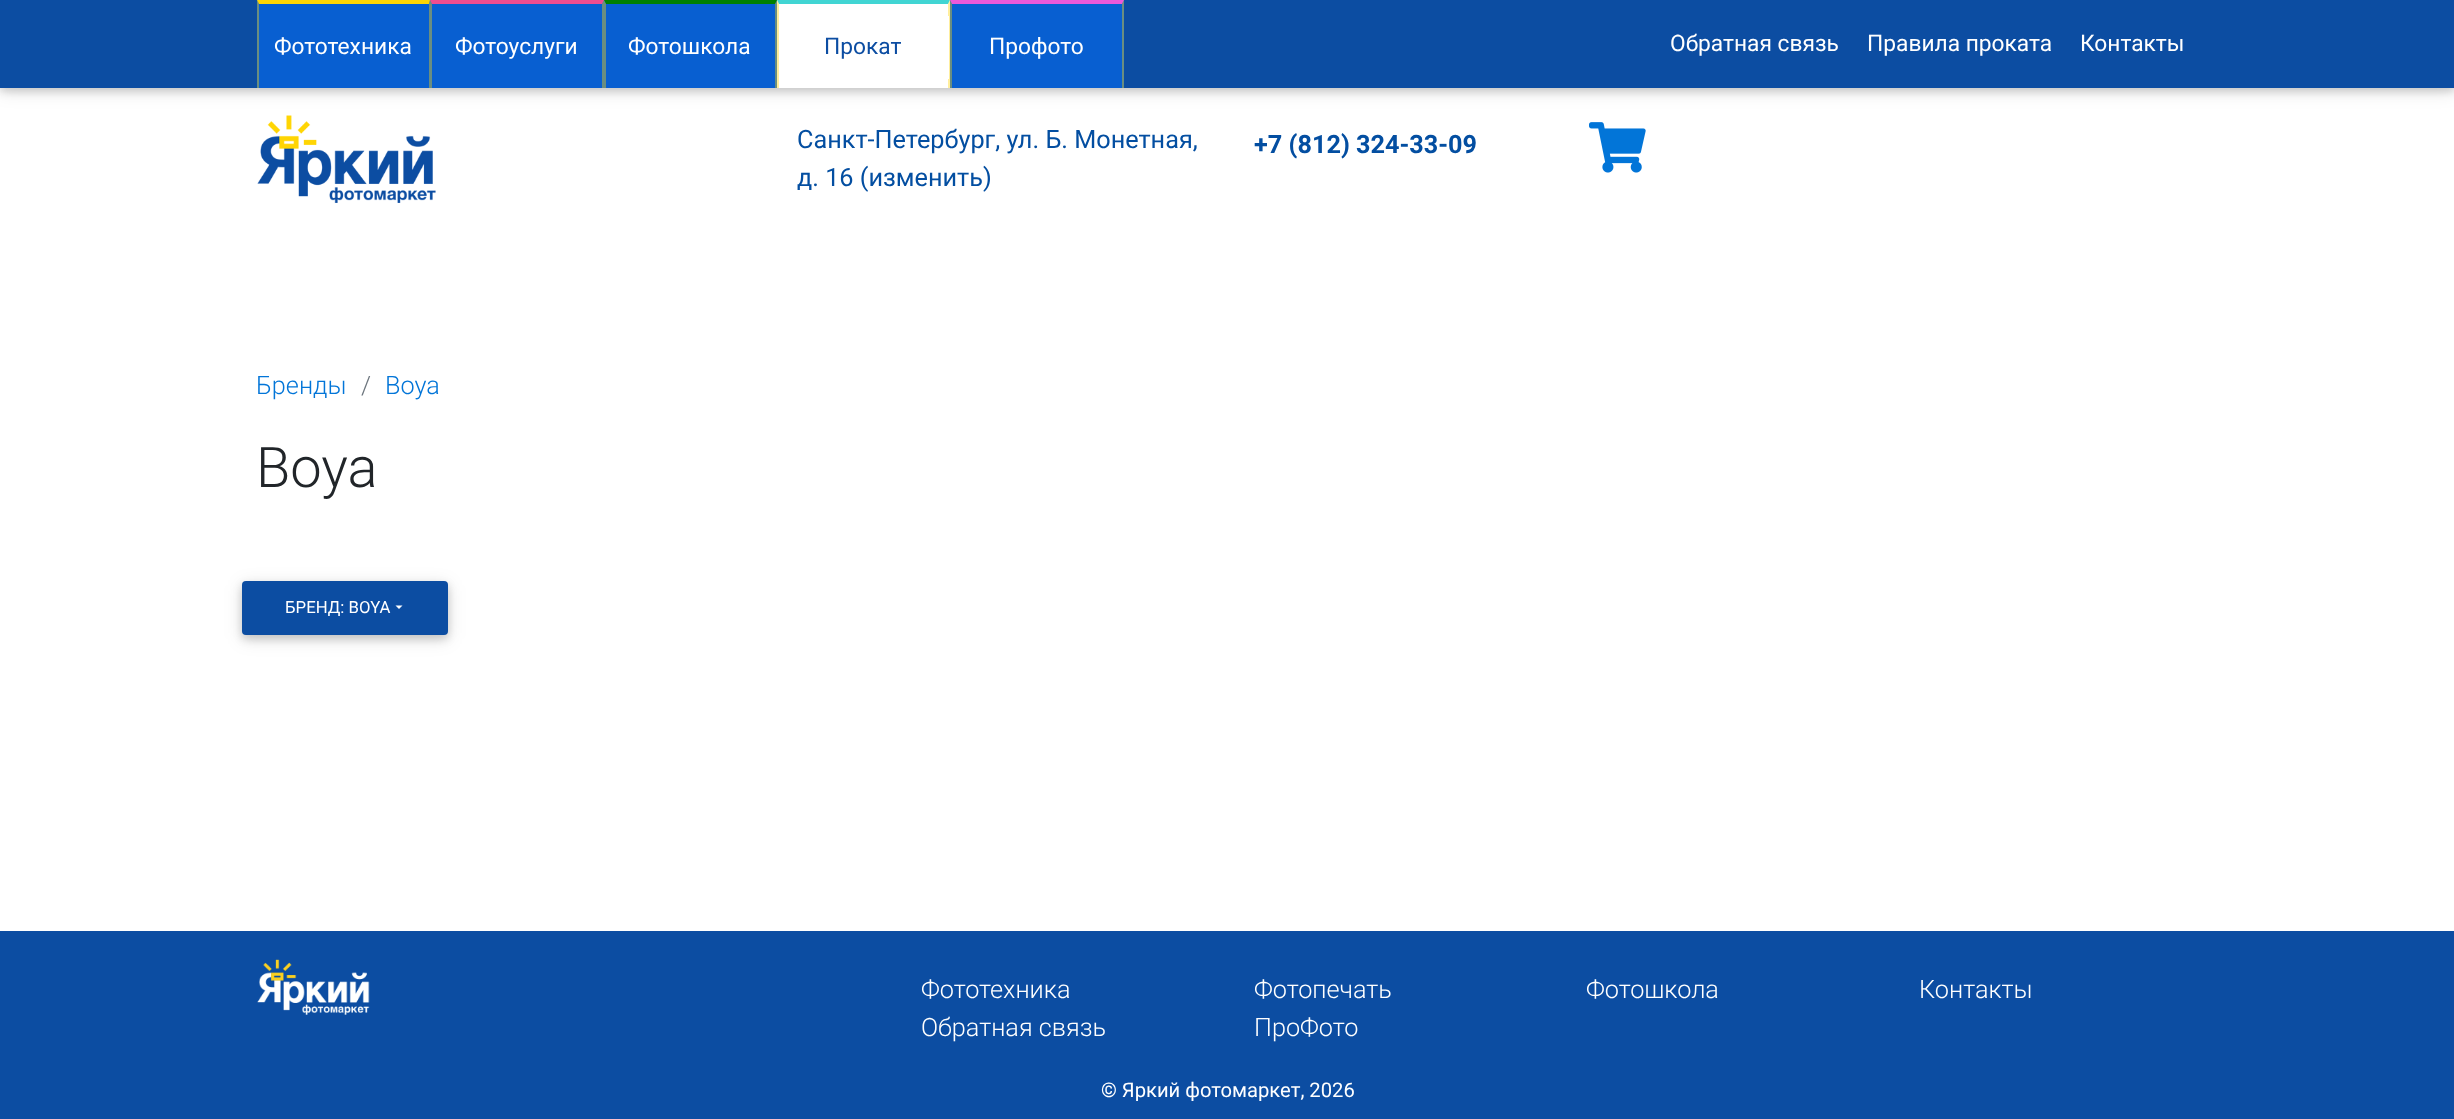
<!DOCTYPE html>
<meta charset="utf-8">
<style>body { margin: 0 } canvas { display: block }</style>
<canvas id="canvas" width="2454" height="1119"></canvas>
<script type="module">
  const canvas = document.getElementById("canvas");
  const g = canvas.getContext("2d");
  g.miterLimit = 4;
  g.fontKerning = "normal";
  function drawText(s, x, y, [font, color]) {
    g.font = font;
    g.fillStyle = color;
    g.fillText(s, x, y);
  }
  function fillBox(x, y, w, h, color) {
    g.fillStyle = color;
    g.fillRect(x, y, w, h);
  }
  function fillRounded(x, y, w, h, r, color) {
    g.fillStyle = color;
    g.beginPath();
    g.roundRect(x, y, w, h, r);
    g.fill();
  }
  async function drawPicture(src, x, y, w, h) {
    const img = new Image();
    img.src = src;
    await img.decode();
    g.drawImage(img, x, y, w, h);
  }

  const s1 = ["22.75px Roboto", "#FFFFFF"];
  const s2 = ["22.75px Roboto", "#0C4DA2"];
  const s3 = ["25.25px Roboto", "#034EA1"];
  const s4 = ["bold 25.25px Roboto", "#034EA1"];
  const s5 = ["300 25.25px Roboto", "#0275D8"];
  const s6 = ["300 25.25px Roboto", "#6C757D"];
  const s7 = ["300 56px Roboto", "#212529"];
  const s8 = ["16.75px 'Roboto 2'", "#FFFFFF"];
  const s9 = ["300 25.25px Roboto", "#FFFFFF"];
  const s10 = ["20.2px Roboto", "#FFFFFF"];

  fillBox(0, 0, 2454, 1119, "#FFFFFF");
  await drawPicture("pic1.png", 257, 115, 179, 88);
  g.fillStyle = "rgba(0, 0, 0, 0.12)";
  g.filter = "blur(9px)";
  g.beginPath();
  g.rect(0, 4, 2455, 87);
  g.fill();
  g.filter = "none";
  g.fillStyle = "rgba(0, 0, 0, 0.16)";
  g.filter = "blur(4.5px)";
  g.beginPath();
  g.rect(0, 4, 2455, 87);
  g.fill();
  g.filter = "none";
  fillBox(0, 0, 2454, 88, "#0C4DA2");
  fillBox(257, 0, 520, 88, "#085FD1");
  g.fillStyle = "#FFD503";
  g.beginPath();
  g.moveTo(257, 0);
  g.lineTo(430, 0);
  g.lineTo(429, 4);
  g.lineTo(259, 4);
  g.closePath();
  g.fill();
  g.fillStyle = "rgba(255, 213, 8, 0.4)";
  g.beginPath();
  g.moveTo(430, 0);
  g.lineTo(430, 88);
  g.lineTo(429, 88);
  g.lineTo(429, 4);
  g.closePath();
  g.fill();
  g.beginPath();
  g.moveTo(257, 88);
  g.lineTo(257, 0);
  g.lineTo(259, 4);
  g.lineTo(259, 88);
  g.closePath();
  g.fill();
  drawText("Фототехника", 274, 54, s1);
  g.fillStyle = "#EF4D8F";
  g.beginPath();
  g.moveTo(430, 0);
  g.lineTo(604, 0);
  g.lineTo(602, 4);
  g.lineTo(432, 4);
  g.closePath();
  g.fill();
  g.fillStyle = "rgba(255, 213, 8, 0.4)";
  g.beginPath();
  g.moveTo(604, 0);
  g.lineTo(604, 88);
  g.lineTo(602, 88);
  g.lineTo(602, 4);
  g.closePath();
  g.fill();
  g.beginPath();
  g.moveTo(430, 88);
  g.lineTo(430, 0);
  g.lineTo(432, 4);
  g.lineTo(432, 88);
  g.closePath();
  g.fill();
  drawText("Фотоуслуги", 455, 54, s1);
  g.fillStyle = "#008000";
  g.beginPath();
  g.moveTo(604, 0);
  g.lineTo(777, 0);
  g.lineTo(775, 4);
  g.lineTo(606, 4);
  g.closePath();
  g.fill();
  g.fillStyle = "rgba(255, 213, 8, 0.4)";
  g.beginPath();
  g.moveTo(777, 0);
  g.lineTo(777, 88);
  g.lineTo(775, 88);
  g.lineTo(775, 4);
  g.closePath();
  g.fill();
  g.beginPath();
  g.moveTo(604, 88);
  g.lineTo(604, 0);
  g.lineTo(606, 4);
  g.lineTo(606, 88);
  g.closePath();
  g.fill();
  drawText("Фотошкола", 628, 54, s1);
  fillBox(777, 0, 173, 88, "#FFFFFF");
  g.fillStyle = "#41D5D3";
  g.beginPath();
  g.moveTo(777, 0);
  g.lineTo(950, 0);
  g.lineTo(948, 4);
  g.lineTo(779, 4);
  g.closePath();
  g.fill();
  g.fillStyle = "rgba(255, 213, 8, 0.4)";
  g.beginPath();
  g.moveTo(950, 0);
  g.lineTo(950, 88);
  g.lineTo(948, 88);
  g.lineTo(948, 4);
  g.closePath();
  g.fill();
  g.beginPath();
  g.moveTo(777, 88);
  g.lineTo(777, 0);
  g.lineTo(779, 4);
  g.lineTo(779, 88);
  g.closePath();
  g.fill();
  fillBox(948, 16, 1, 63, "#FFFFFF");
  drawText("Прокат", 824, 54, s2);
  fillBox(950, 0, 174, 88, "#085FD1");
  g.fillStyle = "#EC59DA";
  g.beginPath();
  g.moveTo(950, 0);
  g.lineTo(1124, 0);
  g.lineTo(1122, 4);
  g.lineTo(952, 4);
  g.closePath();
  g.fill();
  g.fillStyle = "rgba(255, 213, 8, 0.4)";
  g.beginPath();
  g.moveTo(1124, 0);
  g.lineTo(1124, 88);
  g.lineTo(1122, 88);
  g.lineTo(1122, 4);
  g.closePath();
  g.fill();
  g.beginPath();
  g.moveTo(950, 88);
  g.lineTo(950, 0);
  g.lineTo(952, 4);
  g.lineTo(952, 88);
  g.closePath();
  g.fill();
  drawText("Профото", 989, 54, s1);
  drawText("Обратная связь", 1670, 51, s1);
  drawText("Правила проката", 1867, 51, s1);
  drawText("Контакты", 2080, 51, s1);
  drawText("Санкт-Петербург, ул. Б. Монетная,", 797, 148, s3);
  drawText("д. 16 (изменить)", 797, 186, s3);
  drawText("+7 (812) 324-33-09", 1254, 153, s4);
  await drawPicture("pic2.png", 1589, 122, 57, 51);
  drawText("Бренды", 256, 394, s5);
  drawText("/", 361, 394, s6);
  drawText("Boya", 385, 394, s5);
  drawText("Boya", 256, 487, s7);
  g.fillStyle = "rgba(0, 0, 0, 0.12)";
  g.filter = "blur(9px)";
  g.beginPath();
  g.roundRect(242, 585, 206, 54, 4);
  g.fill();
  g.filter = "none";
  g.fillStyle = "rgba(0, 0, 0, 0.16)";
  g.filter = "blur(4.5px)";
  g.beginPath();
  g.roundRect(242, 585, 206, 54, 4);
  g.fill();
  g.filter = "none";
  fillRounded(242, 581, 206, 54, 4, "#0C4DA2");
  drawText("БРЕНД: BOYA", 285, 613, s8);
  g.beginPath();
  g.moveTo(395.5, 605.5);
  g.lineTo(402.5, 605.5);
  g.lineTo(399, 609);
  g.closePath();
  g.fill();
  fillBox(0, 931, 2454, 188, "#0C4DA2");
  await drawPicture("pic3.png", 257, 959, 113, 56);
  drawText("Фототехника", 921, 998, s9);
  drawText("Фотопечать", 1254, 998, s9);
  drawText("Фотошкола", 1586, 998, s9);
  drawText("Контакты", 1919, 998, s9);
  drawText("Обратная связь", 921, 1036, s9);
  drawText("ПроФото", 1254, 1036, s9);
  drawText("© Яркий фотомаркет, 2026", 1101, 1097, s10);
</script>
